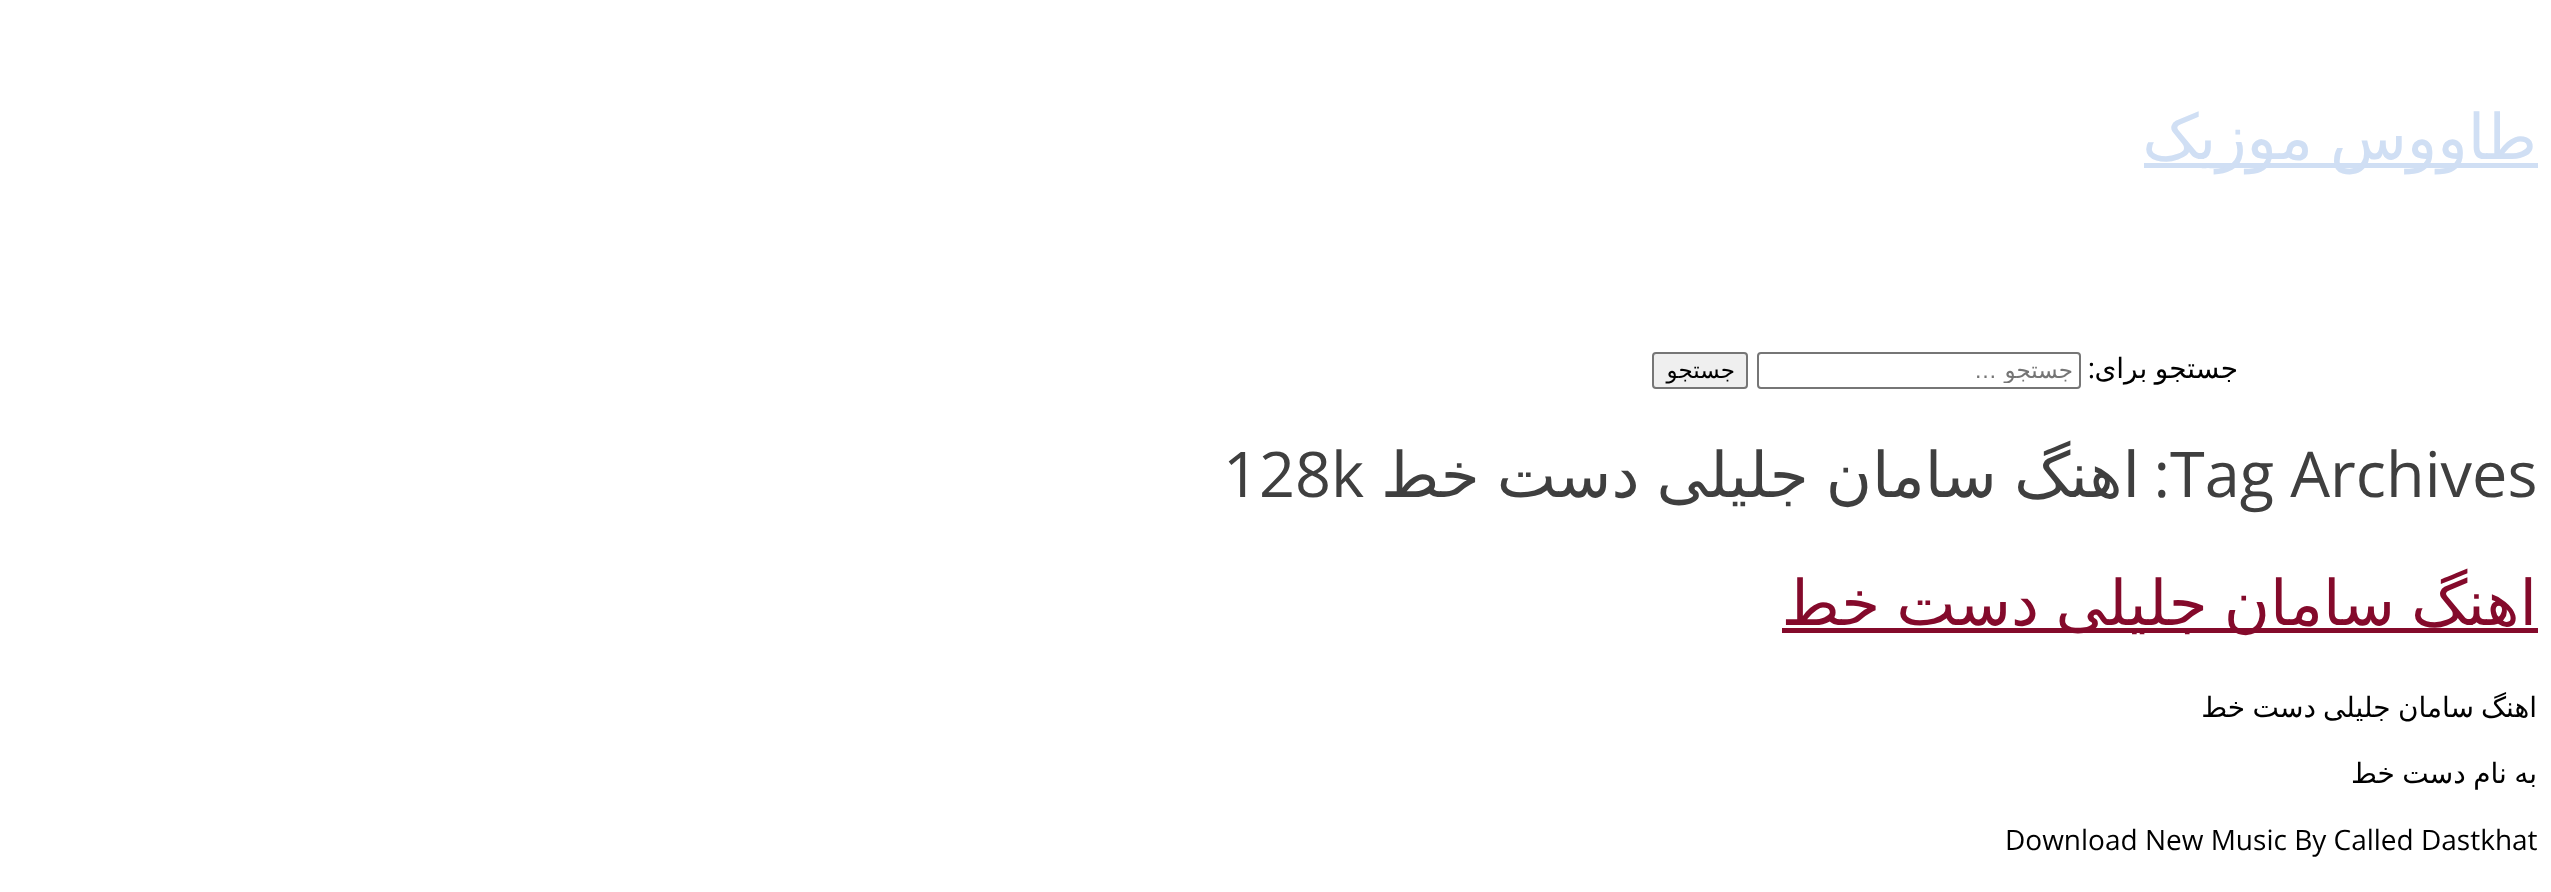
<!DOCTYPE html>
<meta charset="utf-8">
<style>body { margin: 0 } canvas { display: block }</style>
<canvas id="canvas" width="2551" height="892"></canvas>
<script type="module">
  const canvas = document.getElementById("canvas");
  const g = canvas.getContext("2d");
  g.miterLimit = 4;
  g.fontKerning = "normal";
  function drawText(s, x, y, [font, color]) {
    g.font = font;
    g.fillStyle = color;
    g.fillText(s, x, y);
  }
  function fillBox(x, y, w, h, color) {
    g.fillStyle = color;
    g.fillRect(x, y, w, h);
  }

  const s1 = ["63px DejaVu Sans", "#D0DFF4"];
  const s2 = ["28px DejaVu Sans", "#000000"];
  const s3 = ["28px Open Sans", "#000000"];
  const s4 = ["23px DejaVu Sans", "#757575"];
  const s5 = ["23px Liberation Sans", "#757575"];
  const s6 = ["23px DejaVu Sans", "#000000"];
  const s7 = ["63px Open Sans", "#3F3F3F"];
  const s8 = ["63px DejaVu Sans", "#3F3F3F"];
  const s9 = ["63px DejaVu Sans", "#840A2B"];

  fillBox(0, 0, 2551, 892, "#FFFFFF");
  fillBox(2144, 163, 394, 5, "#D0DFF4");
  g.wordSpacing = "-3px";
  g.direction = "rtl";
  drawText("طاووس موزیک", 2537, 159, s1);
  g.wordSpacing = "-1.5px";
  drawText("جستجو برای", 2238, 378, s2);
  g.wordSpacing = "0px";
  drawText(":", 2095, 378, s3);
  g.beginPath();
  g.roundRect(1758, 353, 322, 35, 3);
  g.strokeStyle = "#767676";
  g.lineWidth = 2;
  g.stroke();
  g.save();
  g.beginPath();
  g.rect(1787, 357, 287, 26);
  g.clip();
  drawText("جستجو", 2073, 378, s4);
  g.restore();
  drawText("…", 1997, 378, s5);
  g.fillStyle = "#EFEFEF";
  g.beginPath();
  g.roundRect(1653, 353, 94, 35, 3);
  g.fill();
  g.stroke();
  drawText("جستجو", 1735, 378, s6);
  g.direction = "ltr";
  drawText("Tag Archives", 2170, 497, s7);
  g.direction = "rtl";
  drawText(":", 2170, 497, s7);
  g.wordSpacing = "-3px";
  drawText("اهنگ سامان جلیلی دست خط", 2140, 497, s8);
  g.wordSpacing = "0px";
  g.direction = "ltr";
  drawText("128k", 1223, 497, s7);
  g.direction = "rtl";
  drawText("اهنگ", 2537, 625, s9);
  fillBox(1782, 628, 756, 5, "#840A2B");
  g.wordSpacing = "-4px";
  drawText("سامان جلیلی", 2395, 625, s9);
  drawText("دست خط", 2039, 625, s9);
  g.wordSpacing = "0px";
  drawText("اهنگ", 2537, 717, s2);
  g.wordSpacing = "-1.5px";
  drawText("سامان جلیلی", 2474, 717, s2);
  drawText("دست خط", 2316, 717, s2);
  drawText("به نام دست خط", 2537, 783, s2);
  g.wordSpacing = "0px";
  g.direction = "ltr";
  drawText("Download New Music By Called Dastkhat", 2005, 850, s3);
</script>
